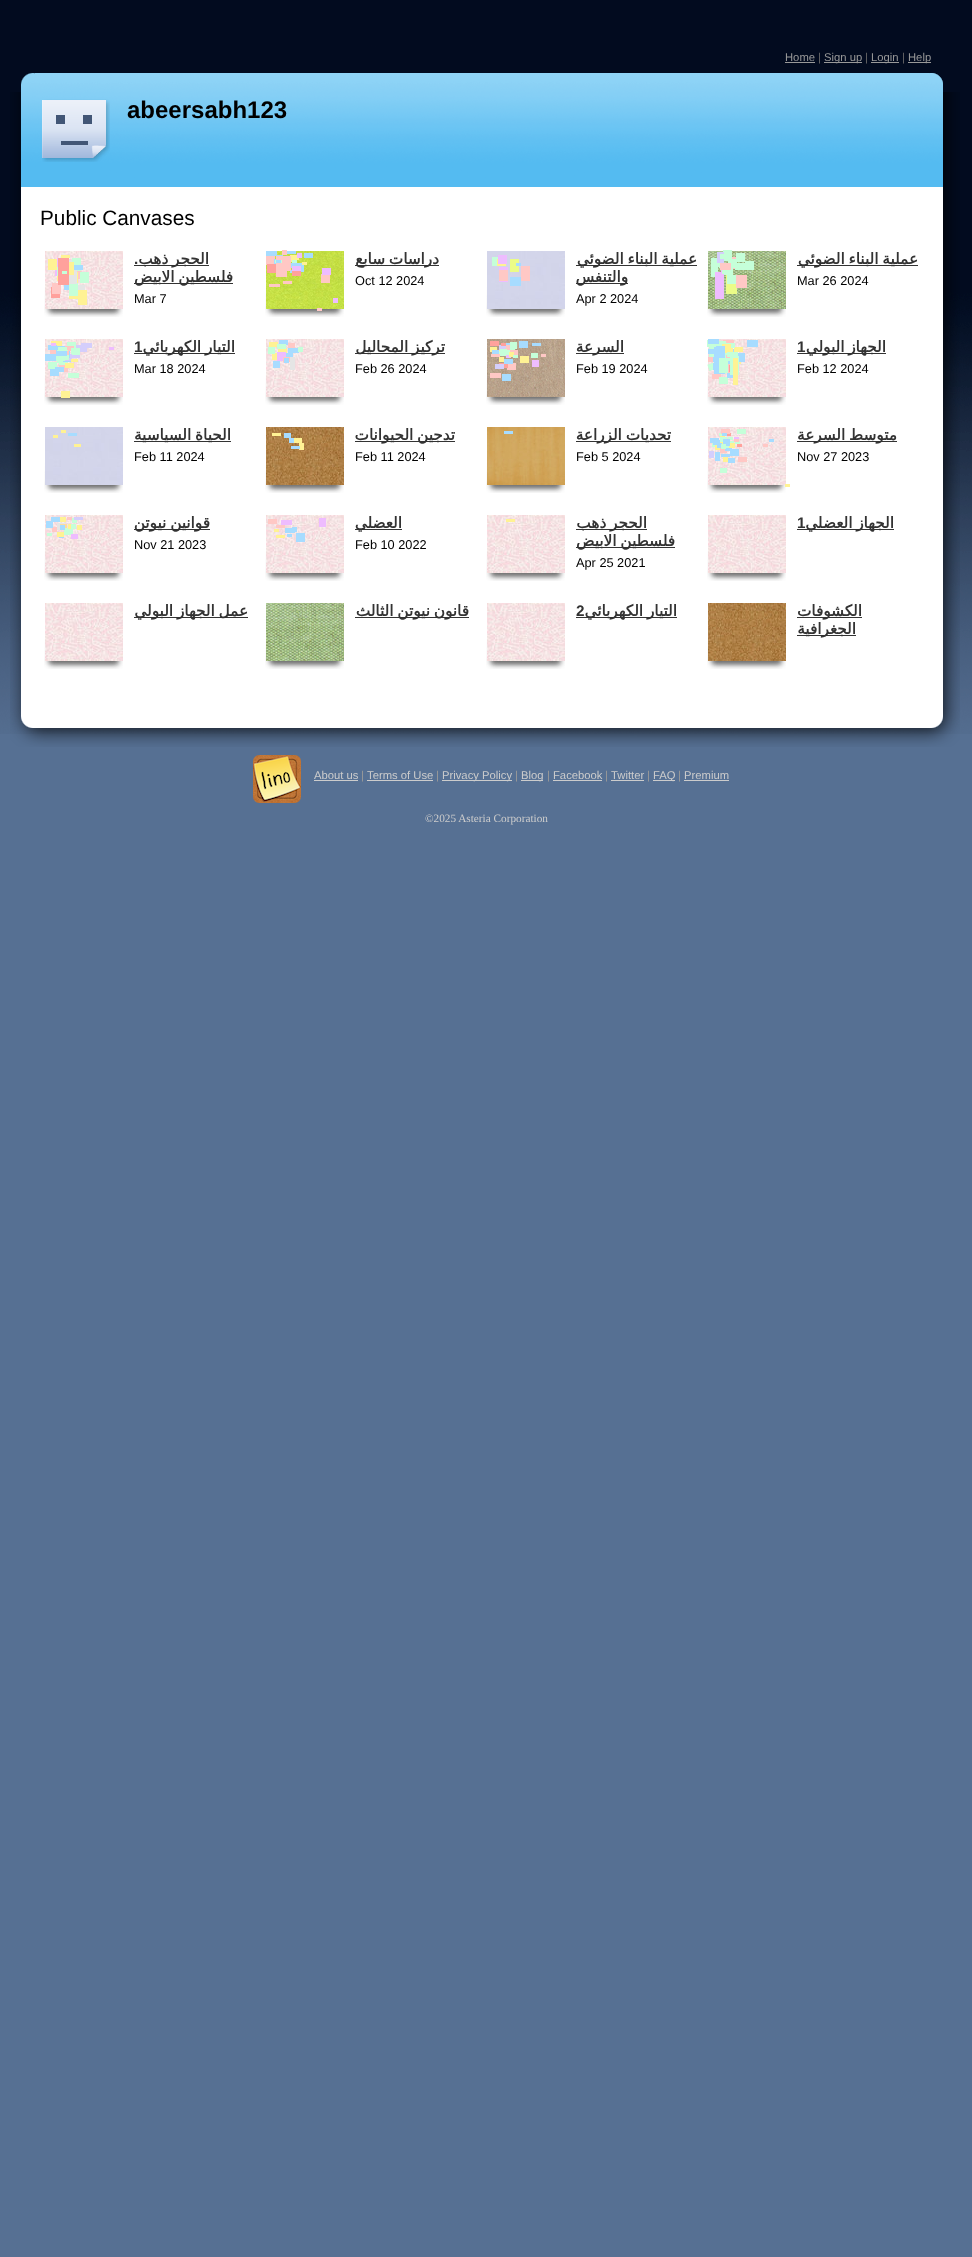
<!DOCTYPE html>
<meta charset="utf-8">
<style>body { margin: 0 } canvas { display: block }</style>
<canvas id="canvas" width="972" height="2257"></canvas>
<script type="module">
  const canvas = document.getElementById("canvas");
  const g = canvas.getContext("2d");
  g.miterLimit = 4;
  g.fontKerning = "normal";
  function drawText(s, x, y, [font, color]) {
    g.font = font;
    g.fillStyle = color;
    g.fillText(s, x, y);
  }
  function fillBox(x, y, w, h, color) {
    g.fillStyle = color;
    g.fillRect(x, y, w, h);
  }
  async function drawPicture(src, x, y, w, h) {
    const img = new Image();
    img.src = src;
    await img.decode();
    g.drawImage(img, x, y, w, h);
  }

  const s1 = ["11.25px Liberation Sans", "#999999"];
  const s2 = ["11.25px Liberation Sans", "#666666"];
  const s3 = ["bold 24px Liberation Sans", "#000000"];
  const s4 = ["20.75px Liberation Sans", "#000000"];
  const s5 = ["bold 15.25px Liberation Sans", "#333333"];
  const s6 = ["bold 15.25px DejaVu Sans", "#333333"];
  const s7 = ["12.75px Liberation Sans", "#000000"];
  const s8 = ["11.25px Liberation Sans", "#CCCCCC"];
  const s9 = ["11.25px Liberation Serif", "#CCCCCC"];

  fillBox(0, 0, 972, 2257, "#567093");
  await drawPicture("pic1.png", 0, 0, 972, 734);
  drawText("Home", 785, 61, s1);
  fillBox(785, 62, 30, 1, "#999999");
  drawText("|", 818, 61, s2);
  fillBox(824, 62, 38, 1, "#999999");
  drawText("Sign up", 824, 61, s1);
  drawText("|", 865, 61, s2);
  fillBox(871, 62, 28, 1, "#999999");
  drawText("Login", 871, 61, s1);
  drawText("|", 902, 61, s2);
  fillBox(908, 62, 23, 1, "#999999");
  drawText("Help", 908, 61, s1);
  await drawPicture("pic2.png", 21, 73, 922, 19);
  await drawPicture("pic3.png", 10, 92, 950, 617);
  await drawPicture("pic4.png", 21, 92, 922, 95);
  await drawPicture("pic5.png", 42, 99, 68, 63);
  drawText("abeersabh123", 127, 118, s3);
  drawText("Public Canvases", 40, 225, s4);
  await drawPicture("pic6.png", 44, 251, 79, 66);
  drawText(".", 134, 264, s5);
  fillBox(134, 265, 75, 1, "#333333");
  g.wordSpacing = "-1px";
  g.direction = "rtl";
  drawText("الحجر ذهب", 209, 264, s6);
  fillBox(134, 283, 99, 1, "#333333");
  drawText("فلسطين الابيض", 233, 282, s6);
  g.wordSpacing = "0px";
  g.direction = "ltr";
  drawText("Mar 7", 134, 303, s7);
  await drawPicture("pic7.png", 265, 250, 79, 67);
  fillBox(355, 265, 84, 1, "#333333");
  g.wordSpacing = "-1px";
  g.direction = "rtl";
  drawText("دراسات سابع", 439, 264, s6);
  g.wordSpacing = "0px";
  g.direction = "ltr";
  drawText("Oct 12 2024", 355, 285, s7);
  await drawPicture("pic8.png", 486, 251, 79, 66);
  fillBox(576, 265, 121, 1, "#333333");
  g.wordSpacing = "-1px";
  g.direction = "rtl";
  drawText("عملية البناء الضوئي", 697, 264, s6);
  fillBox(576, 283, 52, 1, "#333333");
  g.wordSpacing = "0px";
  drawText("والتنفس", 628, 282, s6);
  g.direction = "ltr";
  drawText("Apr 2 2024", 576, 303, s7);
  await drawPicture("pic9.png", 707, 250, 79, 67);
  fillBox(797, 265, 121, 1, "#333333");
  g.wordSpacing = "-1px";
  g.direction = "rtl";
  drawText("عملية البناء الضوئي", 918, 264, s6);
  g.wordSpacing = "0px";
  g.direction = "ltr";
  drawText("Mar 26 2024", 797, 285, s7);
  await drawPicture("pic10.png", 44, 339, 79, 66);
  drawText("1", 134, 352, s5);
  fillBox(134, 353, 101, 1, "#333333");
  g.wordSpacing = "-1px";
  g.direction = "rtl";
  drawText("التيار الكهربائي", 235, 352, s6);
  g.wordSpacing = "0px";
  g.direction = "ltr";
  drawText("Mar 18 2024", 134, 373, s7);
  await drawPicture("pic11.png", 265, 339, 79, 66);
  fillBox(355, 353, 90, 1, "#333333");
  g.wordSpacing = "-1px";
  g.direction = "rtl";
  drawText("تركيز المحاليل", 445, 352, s6);
  g.wordSpacing = "0px";
  g.direction = "ltr";
  drawText("Feb 26 2024", 355, 373, s7);
  await drawPicture("pic12.png", 486, 339, 79, 66);
  fillBox(576, 353, 48, 1, "#333333");
  g.direction = "rtl";
  drawText("السرعة", 624, 352, s6);
  g.direction = "ltr";
  drawText("Feb 19 2024", 576, 373, s7);
  await drawPicture("pic13.png", 707, 339, 79, 66);
  drawText("1", 797, 352, s5);
  fillBox(797, 353, 89, 1, "#333333");
  g.wordSpacing = "-1px";
  g.direction = "rtl";
  drawText("الجهاز البولي", 886, 352, s6);
  g.wordSpacing = "0px";
  g.direction = "ltr";
  drawText("Feb 12 2024", 797, 373, s7);
  await drawPicture("pic14.png", 44, 427, 79, 66);
  fillBox(134, 441, 97, 1, "#333333");
  g.wordSpacing = "-1px";
  g.direction = "rtl";
  drawText("الحياة السياسية", 231, 440, s6);
  g.wordSpacing = "0px";
  g.direction = "ltr";
  drawText("Feb 11 2024", 134, 461, s7);
  await drawPicture("pic15.png", 265, 427, 79, 66);
  fillBox(355, 441, 100, 1, "#333333");
  g.wordSpacing = "-1px";
  g.direction = "rtl";
  drawText("تدجين الحيوانات", 455, 440, s6);
  g.wordSpacing = "0px";
  g.direction = "ltr";
  drawText("Feb 11 2024", 355, 461, s7);
  await drawPicture("pic16.png", 486, 427, 79, 66);
  fillBox(576, 441, 95, 1, "#333333");
  g.wordSpacing = "-1px";
  g.direction = "rtl";
  drawText("تحديات الزراعة", 671, 440, s6);
  g.wordSpacing = "0px";
  g.direction = "ltr";
  drawText("Feb 5 2024", 576, 461, s7);
  await drawPicture("pic17.png", 707, 427, 83, 66);
  fillBox(797, 441, 100, 1, "#333333");
  g.wordSpacing = "-1px";
  g.direction = "rtl";
  drawText("متوسط السرعة", 897, 440, s6);
  g.wordSpacing = "0px";
  g.direction = "ltr";
  drawText("Nov 27 2023", 797, 461, s7);
  await drawPicture("pic18.png", 44, 515, 79, 66);
  fillBox(134, 529, 76, 1, "#333333");
  g.wordSpacing = "-1px";
  g.direction = "rtl";
  drawText("قوانين نيوتن", 210, 528, s6);
  g.wordSpacing = "0px";
  g.direction = "ltr";
  drawText("Nov 21 2023", 134, 549, s7);
  await drawPicture("pic19.png", 265, 515, 79, 66);
  fillBox(355, 529, 47, 1, "#333333");
  g.direction = "rtl";
  drawText("العضلي", 402, 528, s6);
  g.direction = "ltr";
  drawText("Feb 10 2022", 355, 549, s7);
  await drawPicture("pic20.png", 486, 515, 79, 66);
  fillBox(576, 529, 71, 1, "#333333");
  g.wordSpacing = "-1px";
  g.direction = "rtl";
  drawText("الحجر ذهب", 647, 528, s6);
  fillBox(576, 547, 99, 1, "#333333");
  drawText("فلسطين الابيض", 675, 546, s6);
  g.wordSpacing = "0px";
  g.direction = "ltr";
  drawText("Apr 25 2021", 576, 567, s7);
  await drawPicture("pic21.png", 707, 515, 79, 66);
  drawText("1", 797, 528, s5);
  fillBox(797, 529, 97, 1, "#333333");
  g.wordSpacing = "-1px";
  g.direction = "rtl";
  drawText("الجهاز العضلي", 894, 528, s6);
  await drawPicture("pic21.png", 44, 603, 79, 66);
  fillBox(134, 617, 114, 1, "#333333");
  drawText("عمل الجهاز البولي", 248, 616, s6);
  await drawPicture("pic22.png", 265, 603, 79, 66);
  fillBox(355, 617, 114, 1, "#333333");
  drawText("قانون نيوتن الثالث", 469, 616, s6);
  await drawPicture("pic21.png", 486, 603, 79, 66);
  g.wordSpacing = "0px";
  g.direction = "ltr";
  drawText("2", 576, 616, s5);
  fillBox(576, 617, 101, 1, "#333333");
  g.wordSpacing = "-1px";
  g.direction = "rtl";
  drawText("التيار الكهربائي", 677, 616, s6);
  await drawPicture("pic23.png", 707, 603, 79, 66);
  fillBox(797, 617, 65, 1, "#333333");
  g.wordSpacing = "0px";
  drawText("الكشوفات", 862, 616, s6);
  fillBox(797, 635, 59, 1, "#333333");
  drawText("الجغرافية", 856, 634, s6);
  await drawPicture("pic24.png", 10, 709, 950, 38);
  await drawPicture("pic25.png", 253, 755, 48, 48);
  g.direction = "ltr";
  drawText("About us", 314, 779, s8);
  fillBox(314, 780, 44, 1, "#CCCCCC");
  drawText("|", 361, 779, s1);
  drawText("Terms of Use", 367, 779, s8);
  fillBox(367, 780, 66, 1, "#CCCCCC");
  drawText("|", 436, 779, s1);
  fillBox(442, 780, 70, 1, "#CCCCCC");
  drawText("Privacy Policy", 442, 779, s8);
  drawText("|", 515, 779, s1);
  fillBox(521, 780, 22, 1, "#CCCCCC");
  drawText("Blog", 521, 779, s8);
  drawText("|", 547, 779, s1);
  drawText("Facebook", 553, 779, s8);
  fillBox(553, 780, 49, 1, "#CCCCCC");
  drawText("|", 605, 779, s1);
  drawText("Twitter", 611, 779, s8);
  fillBox(611, 780, 33, 1, "#CCCCCC");
  drawText("|", 647, 779, s1);
  fillBox(653, 780, 22, 1, "#CCCCCC");
  drawText("FAQ", 653, 779, s8);
  drawText("|", 678, 779, s1);
  drawText("Premium", 684, 779, s8);
  fillBox(684, 780, 45, 1, "#CCCCCC");
  drawText("©2025 Asteria Corporation", 425, 822, s9);
</script>
